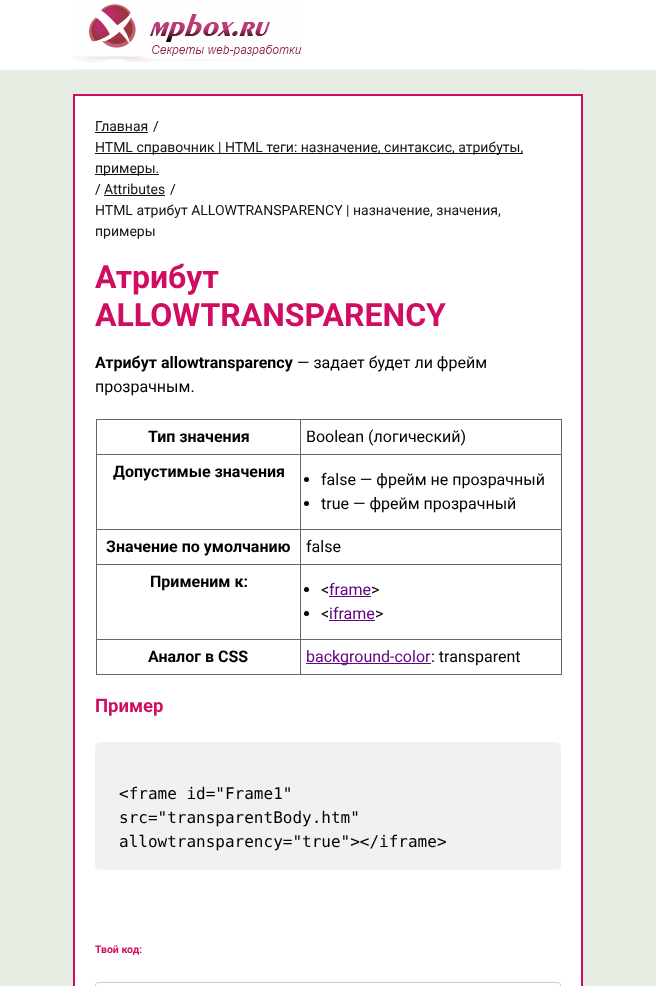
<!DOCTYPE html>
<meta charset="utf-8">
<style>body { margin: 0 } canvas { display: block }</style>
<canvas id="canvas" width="656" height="986"></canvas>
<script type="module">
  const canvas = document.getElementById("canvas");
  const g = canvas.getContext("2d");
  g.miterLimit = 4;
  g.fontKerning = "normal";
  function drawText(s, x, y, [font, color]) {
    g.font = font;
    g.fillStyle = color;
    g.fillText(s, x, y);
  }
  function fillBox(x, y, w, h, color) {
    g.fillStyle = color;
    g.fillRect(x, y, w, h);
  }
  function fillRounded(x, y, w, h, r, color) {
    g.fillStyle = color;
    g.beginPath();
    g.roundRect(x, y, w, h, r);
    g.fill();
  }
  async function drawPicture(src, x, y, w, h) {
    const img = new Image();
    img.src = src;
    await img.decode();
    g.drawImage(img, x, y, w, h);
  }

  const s1 = ["14px Roboto", "#131313"];
  const s2 = ["14px Roboto", "#000000"];
  const s3 = ["bold 32px Roboto", "#D00D62"];
  const s4 = ["bold 16px Roboto", "#000000"];
  const s5 = ["16px Roboto", "#000000"];
  const s6 = ["16px Roboto", "#660482"];
  const s7 = ["bold 18.5px Roboto", "#D00D62"];
  const s8 = ["16px DejaVu Sans Mono", "#000000"];
  const s9 = ["bold 10.5px Roboto", "#D00D62"];

  fillBox(0, 0, 656, 986, "#E8EDE3");
  fillBox(0, 0, 656, 70, "#FFFFFF");
  await drawPicture("pic1.png", 73, 4, 229, 58);
  fillBox(73, 69, 510, 1, "#F4F4F4");
  g.fillStyle = "#FFFFFF";
  g.beginPath();
  g.rect(74, 95, 508, 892);
  g.fill();
  g.strokeStyle = "#D00D62";
  g.lineWidth = 2;
  g.stroke();
  drawText("Главная", 95, 131, s1);
  fillBox(95, 132, 53, 1, "#131313");
  drawText("/", 153, 131, s2);
  fillBox(95, 153, 428, 1, "#131313");
  drawText("HTML справочник | HTML теги: назначение, синтаксис, атрибуты,", 95, 152, s1);
  fillBox(95, 174, 64, 1, "#131313");
  drawText("примеры.", 95, 173, s1);
  drawText("/", 95, 194, s2);
  drawText("Attributes", 104, 194, s1);
  fillBox(104, 195, 61, 1, "#131313");
  drawText("/", 170, 194, s2);
  drawText("HTML атрибут ALLOWTRANSPARENCY | назначение, значения,", 95, 215, s1);
  drawText("примеры", 95, 236, s1);
  drawText("Атрибут", 95, 288, s3);
  drawText("ALLOWTRANSPARENCY", 95, 326, s3);
  drawText("Атрибут allowtransparency", 95, 368, s4);
  drawText("— задает будет ли фрейм", 297, 368, s5);
  drawText("прозрачным.", 95, 392, s5);
  fillBox(96, 419, 466, 1, "#666666");
  fillBox(561, 419, 1, 256, "#666666");
  fillBox(96, 674, 466, 1, "#666666");
  fillBox(96, 419, 1, 256, "#666666");
  drawText("Тип значения", 148, 442, s4);
  fillBox(300, 454, 262, 1, "#666666");
  fillBox(300, 529, 262, 1, "#666666");
  fillBox(300, 564, 262, 1, "#666666");
  fillBox(300, 639, 262, 1, "#666666");
  fillBox(300, 639, 1, 36, "#666666");
  fillBox(96, 639, 205, 1, "#666666");
  fillBox(300, 564, 1, 76, "#666666");
  fillBox(96, 564, 205, 1, "#666666");
  fillBox(300, 529, 1, 36, "#666666");
  fillBox(96, 529, 205, 1, "#666666");
  fillBox(300, 454, 1, 76, "#666666");
  fillBox(96, 454, 205, 1, "#666666");
  fillBox(300, 419, 1, 36, "#666666");
  drawText("Boolean (логический)", 306, 442, s5);
  drawText("Допустимые значения", 113, 477, s4);
  g.beginPath();
  g.arc(306.5, 479.5, 2.5, 0, Math.PI * 2);
  g.fill();
  drawText("false — фрейм не прозрачный", 321, 485, s5);
  g.beginPath();
  g.arc(306.5, 503.5, 2.5, 0, Math.PI * 2);
  g.fill();
  drawText("true — фрейм прозрачный", 321, 509, s5);
  drawText("Значение по умолчанию", 106, 552, s4);
  drawText("false", 306, 552, s5);
  drawText("Применим к:", 150, 587, s4);
  g.beginPath();
  g.arc(306.5, 589.5, 2.5, 0, Math.PI * 2);
  g.fill();
  drawText("<", 321, 595, s5);
  drawText("frame", 329, 595, s6);
  fillBox(329, 596, 42, 1, "#660482");
  drawText(">", 371, 595, s5);
  g.beginPath();
  g.arc(306.5, 613.5, 2.5, 0, Math.PI * 2);
  g.fill();
  drawText("<", 321, 619, s5);
  drawText("iframe", 329, 619, s6);
  fillBox(329, 620, 46, 1, "#660482");
  drawText(">", 375, 619, s5);
  drawText("Аналог в CSS", 148, 662, s4);
  fillBox(306, 663, 125, 1, "#660482");
  drawText("background-color", 306, 662, s6);
  drawText(": transparent", 431, 662, s5);
  drawText("Пример", 95, 712, s7);
  fillRounded(95, 742, 466, 128, 5, "#F2F1F1");
  drawText("<frame id=\"Frame1\"", 119, 799, s8);
  drawText("src=\"transparentBody.htm\"", 119, 823, s8);
  drawText("allowtransparency=\"true\"><\/iframe>", 119, 847, s8);
  drawText("Твой код:", 95, 953, s9);
  g.beginPath();
  g.roundRect(95.5, 982.5, 465, 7, 2.5);
  g.strokeStyle = "#CCCCCC";
  g.lineWidth = 1;
  g.stroke();
</script>
